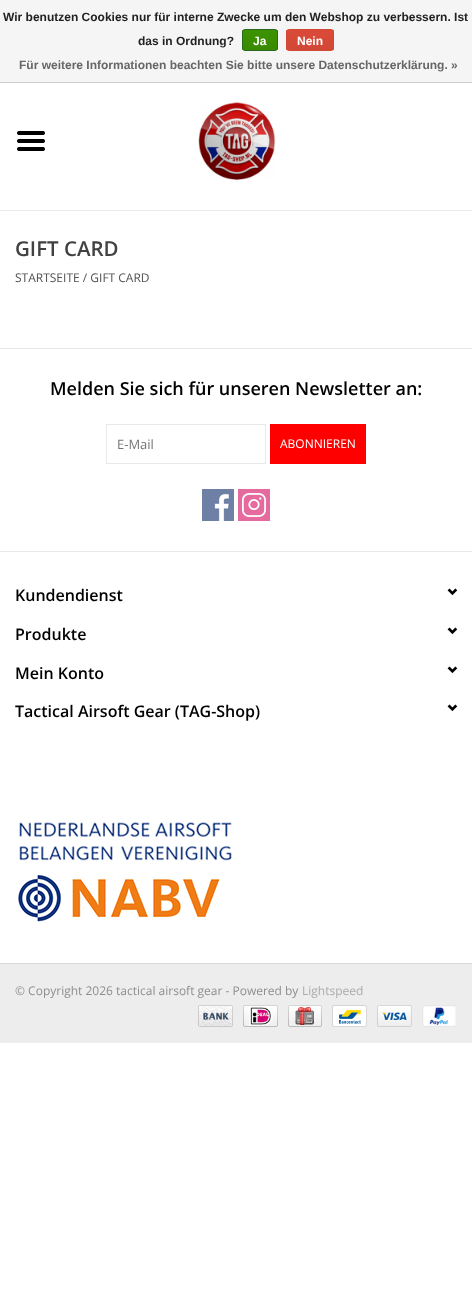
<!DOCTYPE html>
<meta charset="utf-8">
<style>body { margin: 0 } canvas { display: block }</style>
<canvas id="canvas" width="472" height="1312"></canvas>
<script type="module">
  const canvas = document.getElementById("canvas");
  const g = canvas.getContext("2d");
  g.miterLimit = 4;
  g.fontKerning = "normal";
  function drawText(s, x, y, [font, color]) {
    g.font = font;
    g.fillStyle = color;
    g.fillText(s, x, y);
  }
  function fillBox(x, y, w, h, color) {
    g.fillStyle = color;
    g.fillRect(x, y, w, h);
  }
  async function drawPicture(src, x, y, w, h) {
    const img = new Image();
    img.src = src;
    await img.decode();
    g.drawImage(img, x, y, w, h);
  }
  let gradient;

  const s1 = ["bold 12px Liberation Sans", "#222222"];
  const s2 = ["bold 12px Liberation Sans", "#FFFFFF"];
  const s3 = ["bold 12px Liberation Sans", "#666666"];
  const s4 = ["600 20.5px Open Sans", "#414141"];
  const s5 = ["12px Open Sans", "#505050"];
  const s6 = ["600 18px Open Sans", "#000000"];
  const s7 = ["13px Open Sans", "#757575"];
  const s8 = ["12px Open Sans", "#FFFFFF"];
  const s9 = ["600 16px Open Sans", "#000000"];
  const s10 = ["12px Open Sans", "#8E8E8E"];
  const s11 = ["12px Open Sans", "#ABABAB"];

  fillBox(0, 0, 472, 1312, "#FFFFFF");
  fillBox(0, 0, 472, 82, "#F5F5F5");
  fillBox(0, 82, 472, 1, "#CCCCCC");
  drawText("Wir benutzen Cookies nur für interne Zwecke um den Webshop zu verbessern. Ist", 3, 21, s1);
  drawText("das in Ordnung?", 138, 45, s1);
  g.save();
  g.beginPath();
  g.roundRect(242, 29, 36, 22, 3);
  g.clip();
  gradient = g.createLinearGradient(260, 30, 260, 50);
  gradient.addColorStop(0, "#3C9300");
  gradient.addColorStop(1, "#398A00");
  g.fillStyle = gradient;
  g.fillRect(242, 30, 36, 20);
  g.restore();
  g.beginPath();
  g.roundRect(242.5, 29.5, 35, 21, 2.5);
  g.strokeStyle = "#29691D";
  g.stroke();
  drawText("Ja", 253, 45, s2);
  g.save();
  g.beginPath();
  g.roundRect(286, 29, 48, 22, 3);
  g.clip();
  gradient = g.createLinearGradient(310, 30, 310, 50);
  gradient.addColorStop(0, "#DC4A38");
  gradient.addColorStop(1, "#D14836");
  g.fillStyle = gradient;
  g.fillRect(286, 30, 48, 20);
  g.restore();
  g.beginPath();
  g.roundRect(286.5, 29.5, 47, 21, 2.5);
  g.strokeStyle = "#D14836";
  g.stroke();
  drawText("Nein", 297, 45, s2);
  drawText("Für weitere Informationen beachten Sie bitte unsere Datenschutzerklärung. »", 19, 69, s3);
  fillBox(0, 210, 472, 1, "#EAEAEA");
  await drawPicture("pic1.png", 198, 102, 78, 78);
  await drawPicture("pic2.png", 17, 131, 28, 20);
  drawText("GIFT CARD", 15, 256, s4);
  drawText("STARTSEITE / GIFT CARD", 15, 282, s5);
  fillBox(0, 348, 472, 1, "#E9E9E9");
  drawText("Melden Sie sich für unseren Newsletter an:", 50, 395, s6);
  g.strokeStyle = "#E9E9E9";
  g.strokeRect(106.5, 424.5, 159, 39);
  drawText("E-Mail", 117, 449, s7);
  fillBox(270, 424, 96, 40, "#FF0000");
  drawText("ABONNIEREN", 280, 448, s8);
  await drawPicture("pic3.png", 202, 489, 32, 32);
  await drawPicture("pic4.png", 238, 489, 32, 32);
  fillBox(0, 551, 472, 1, "#E9E9E9");
  drawText("Kundendienst", 15, 601, s9);
  await drawPicture("pic5.png", 447, 588, 11, 8);
  drawText("Produkte", 15, 640, s9);
  await drawPicture("pic5.png", 447, 627, 11, 8);
  drawText("Mein Konto", 15, 679, s9);
  await drawPicture("pic5.png", 447, 666, 11, 8);
  drawText("Tactical Airsoft Gear (TAG-Shop)", 15, 717, s9);
  await drawPicture("pic5.png", 447, 704, 11, 8);
  await drawPicture("pic6.png", 19, 822, 213, 39);
  await drawPicture("pic7.png", 18, 875, 202, 47);
  fillBox(0, 963, 472, 1, "#D9D9D9");
  fillBox(0, 964, 472, 79, "#EDEDED");
  drawText("© Copyright 2026 tactical airsoft gear - Powered by", 15, 995, s10);
  drawText("Lightspeed", 302, 995, s11);
  await drawPicture("pic8.png", 198, 1005, 35, 22);
  await drawPicture("pic9.png", 243, 1005, 35, 22);
  await drawPicture("pic10.png", 288, 1005, 34, 22);
  await drawPicture("pic11.png", 332, 1005, 35, 22);
  await drawPicture("pic12.png", 377, 1005, 35, 22);
  await drawPicture("pic13.png", 422, 1005, 35, 22);
</script>
